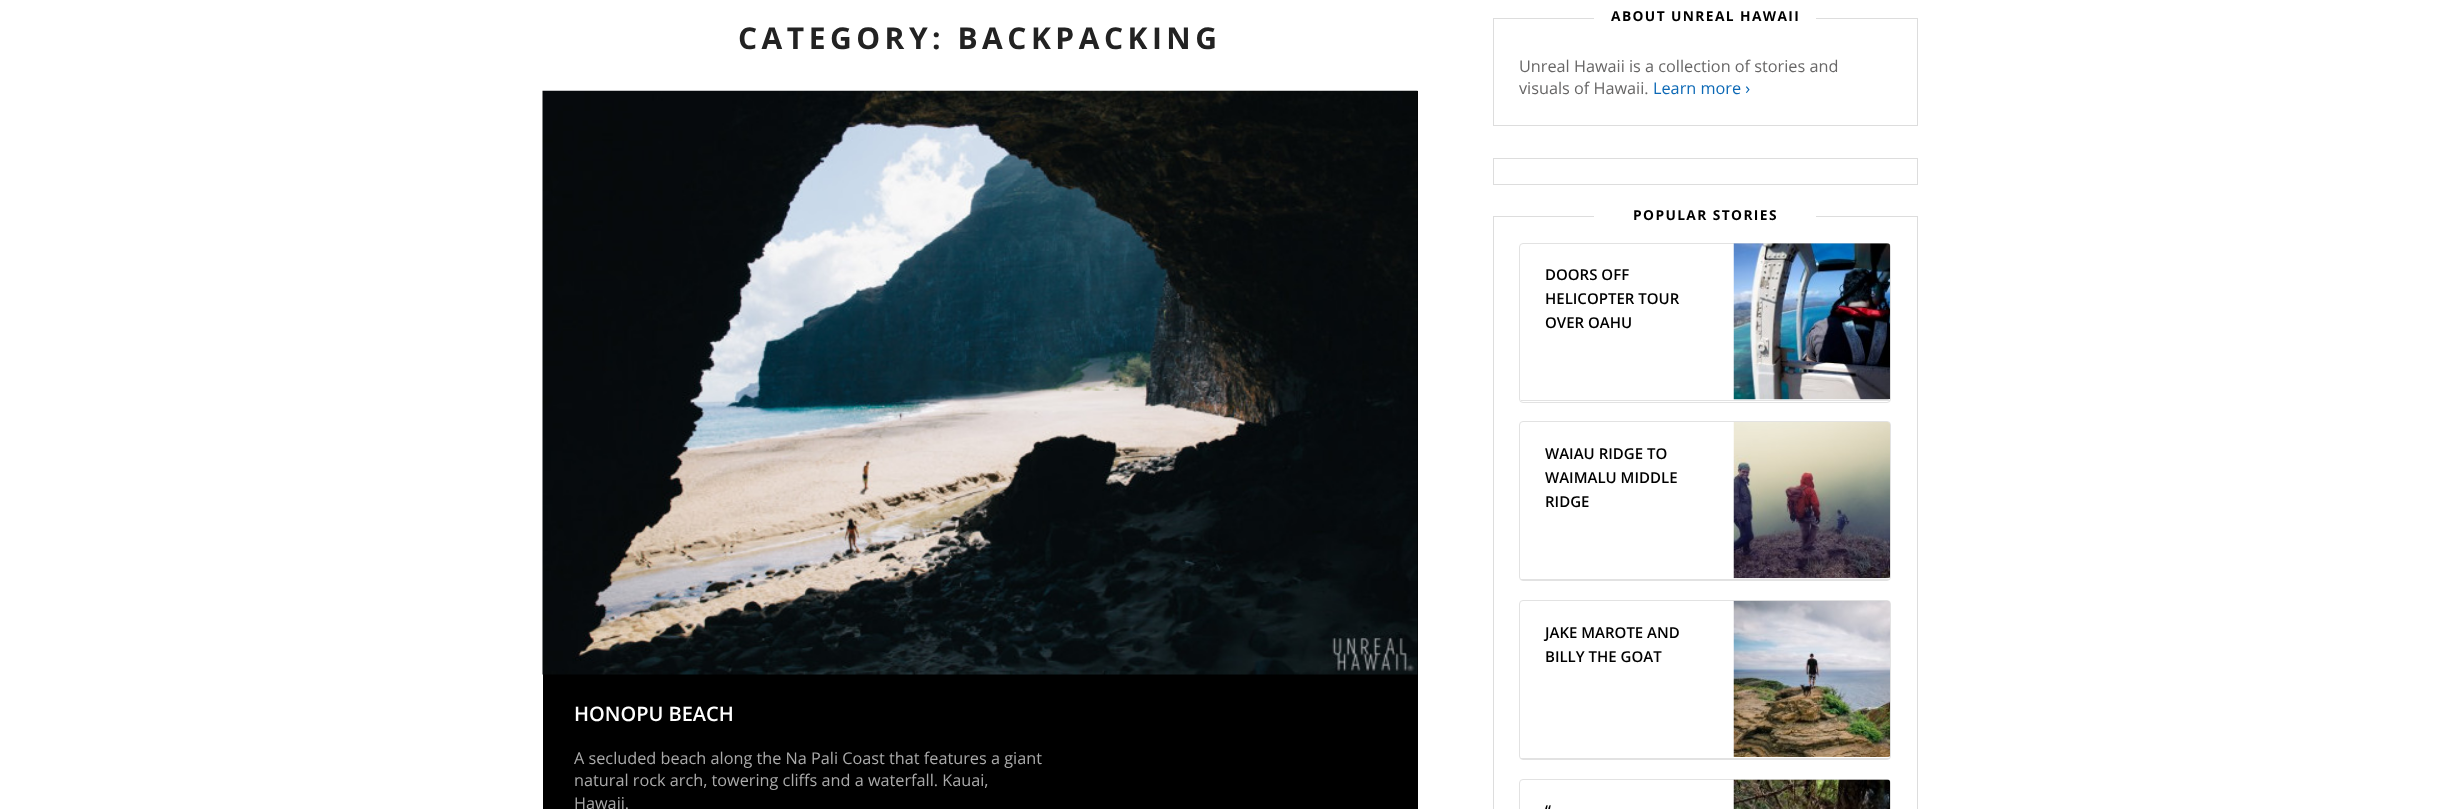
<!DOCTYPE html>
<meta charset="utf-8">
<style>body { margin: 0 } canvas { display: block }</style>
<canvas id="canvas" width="2459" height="809"></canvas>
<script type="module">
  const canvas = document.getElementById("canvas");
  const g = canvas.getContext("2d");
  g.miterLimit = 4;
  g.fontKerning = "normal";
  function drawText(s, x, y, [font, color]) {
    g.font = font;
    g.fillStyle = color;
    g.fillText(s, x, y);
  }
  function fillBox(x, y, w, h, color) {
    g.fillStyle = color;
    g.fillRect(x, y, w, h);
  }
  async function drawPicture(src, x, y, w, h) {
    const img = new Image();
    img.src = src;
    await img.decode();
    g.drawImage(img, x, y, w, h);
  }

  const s1 = ["bold 30px Open Sans", "#222222"];
  const s2 = ["600 20px Open Sans", "#FFFFFF"];
  const s3 = ["16.25px Open Sans", "#AAAAAA"];
  const s4 = ["bold 13.75px Open Sans", "#000000"];
  const s5 = ["16.25px Open Sans", "#676666"];
  const s6 = ["16.25px Open Sans", "#0B68B5"];
  const s7 = ["600 15px Open Sans", "#000000"];

  fillBox(0, 0, 2459, 809, "#FFFFFF");
  g.letterSpacing = "4.5px";
  drawText("CATEGORY: BACKPACKING", 738, 49, s1);
  fillBox(543, 91, 875, 718, "#000000");
  await drawPicture("pic1.png", 542, 90, 876, 585);
  g.letterSpacing = "0px";
  drawText("HONOPU BEACH", 574, 721, s2);
  drawText("A secluded beach along the Na Pali Coast that features a giant", 574, 764, s3);
  drawText("natural rock arch, towering cliffs and a waterfall. Kauai,", 574, 786, s3);
  drawText("Hawaii.", 574, 809, s3);
  g.strokeStyle = "#DDDDDD";
  g.strokeRect(1493.5, 18.5, 424, 107);
  fillBox(1594, 18, 222, 1, "#FFFFFF");
  g.letterSpacing = "1.4px";
  drawText("ABOUT UNREAL HAWAII", 1611, 21, s4);
  g.letterSpacing = "0px";
  drawText("Unreal Hawaii is a collection of stories and", 1519, 72, s5);
  drawText("visuals of Hawaii.", 1519, 94, s5);
  drawText("Learn more ›", 1653, 94, s6);
  g.strokeRect(1493.5, 158.5, 424, 26);
  g.strokeRect(1493.5, 216.5, 424, 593);
  fillBox(1594, 216, 222, 1, "#FFFFFF");
  g.letterSpacing = "1.4px";
  drawText("POPULAR STORIES", 1633, 220, s4);
  g.beginPath();
  g.roundRect(1519.5, 243.5, 371, 159, 3.5);
  g.strokeStyle = "#E2E2E2";
  g.stroke();
  fillBox(1521, 400, 369, 1, "#E2E2E2");
  g.letterSpacing = "0px";
  drawText("DOORS OFF", 1545, 280, s7);
  drawText("HELICOPTER TOUR", 1545, 304, s7);
  drawText("OVER OAHU", 1545, 328, s7);
  await drawPicture("pic2.png", 1733, 243, 157, 157);
  g.beginPath();
  g.roundRect(1519.5, 421.5, 371, 159, 3.5);
  g.stroke();
  fillBox(1521, 579, 369, 1, "#E2E2E2");
  drawText("WAIAU RIDGE TO", 1545, 459, s7);
  drawText("WAIMALU MIDDLE", 1545, 483, s7);
  drawText("RIDGE", 1545, 507, s7);
  await drawPicture("pic3.png", 1733, 422, 157, 157);
  g.beginPath();
  g.roundRect(1519.5, 600.5, 371, 159, 3.5);
  g.stroke();
  fillBox(1521, 758, 369, 1, "#E2E2E2");
  drawText("JAKE MAROTE AND", 1545, 638, s7);
  drawText("BILLY THE GOAT", 1545, 662, s7);
  await drawPicture("pic4.png", 1733, 600, 157, 157);
  g.beginPath();
  g.roundRect(1519.5, 779.5, 371, 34, 3.5);
  g.stroke();
  drawText("“", 1545, 816, s7);
  await drawPicture("pic5.png", 1733, 779, 157, 30);
</script>
